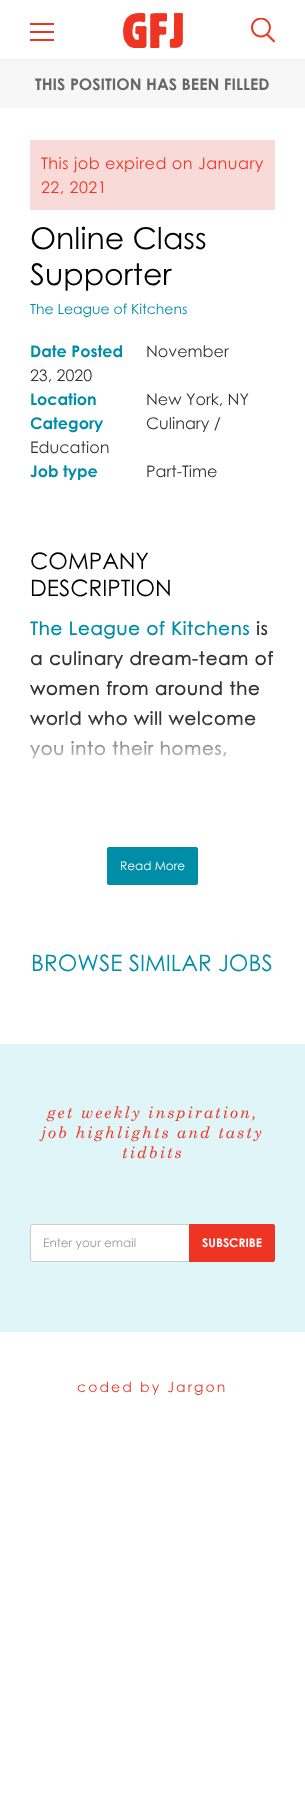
<!DOCTYPE html>
<meta charset="utf-8">
<style>body { margin: 0 } canvas { display: block }</style>
<canvas id="canvas" width="305" height="1795"></canvas>
<script type="module">
  const canvas = document.getElementById("canvas");
  const g = canvas.getContext("2d");
  g.miterLimit = 4;
  g.fontKerning = "normal";
  function drawText(s, x, y, [font, color]) {
    g.font = font;
    g.fillStyle = color;
    g.fillText(s, x, y);
  }
  function fillBox(x, y, w, h, color) {
    g.fillStyle = color;
    g.fillRect(x, y, w, h);
  }
  async function drawPicture(src, x, y, w, h) {
    const img = new Image();
    img.src = src;
    await img.decode();
    g.drawImage(img, x, y, w, h);
  }
  let gradient;

  const s1 = ["bold 16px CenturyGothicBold", "#666666"];
  const s2 = ["16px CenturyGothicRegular", "#EE3524"];
  const s3 = ["30px CenturyGothicRegular", "#000000"];
  const s4 = ["14px CenturyGothicRegular", "#008DA8"];
  const s5 = ["bold 16px CenturyGothicBold", "#008DA8"];
  const s6 = ["16px CenturyGothicRegular", "#333333"];
  const s7 = ["22.6px CenturyGothicRegular", "#000000"];
  const s8 = ["bold 18px CenturyGothicRegular", "#008DA8"];
  const s9 = ["bold 18px CenturyGothicRegular", "#333333"];
  const s10 = ["12px CenturyGothicRegular", "#FFFFFF"];
  const s11 = ["22.6px CenturyGothicRegular", "#008DA8"];
  const s12 = ["italic 16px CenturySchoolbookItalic", "#EE3524"];
  const s13 = ["12px CenturyGothicRegular", "#999999"];
  const s14 = ["bold 12px CenturyGothicBold", "#FFFFFF"];
  const s15 = ["14px CenturyGothicRegular", "#EE3524"];

  fillBox(0, 0, 305, 1795, "#FFFFFF");
  fillBox(0, 59, 305, 1, "#EEEEEE");
  fillBox(30, 23, 24, 2, "#EE3524");
  fillBox(30, 31, 24, 2, "#EE3524");
  fillBox(30, 39, 24, 2, "#EE3524");
  await drawPicture("pic1.png", 123, 13, 60, 35);
  await drawPicture("pic2.png", 251, 18, 24, 25);
  fillBox(0, 60, 305, 48, "#F7F7F7");
  drawText("THIS POSITION HAS BEEN FILLED", 35, 90, s1);
  fillBox(30, 140, 245, 70, "#F8DAD8");
  g.letterSpacing = "0.5px";
  drawText("This job expired on January", 41, 169, s2);
  drawText("22, 2021", 41, 193, s2);
  g.letterSpacing = "0px";
  drawText("Online Class", 30, 249, s3);
  drawText("Supporter", 30, 285, s3);
  drawText("The League of Kitchens", 30, 314, s4);
  drawText("Date Posted", 30, 357, s5);
  drawText("November", 146, 357, s6);
  drawText("23, 2020", 30, 381, s6);
  drawText("Location", 30, 405, s5);
  drawText("New York, NY", 146, 405, s6);
  drawText("Category", 30, 429, s5);
  drawText("Culinary /", 146, 429, s6);
  drawText("Education", 30, 453, s6);
  drawText("Job type", 30, 477, s5);
  drawText("Part-Time", 146, 477, s6);
  drawText("COMPANY", 30, 569, s7);
  drawText("DESCRIPTION", 30, 596, s7);
  g.letterSpacing = "0.8px";
  drawText("The League of Kitchens", 30, 635, s8);
  drawText("is", 256, 635, s9);
  drawText("a culinary dream-team of", 30, 665, s9);
  drawText("women from around the", 30, 695, s9);
  drawText("world who will welcome", 30, 725, s9);
  drawText("you into their homes,", 30, 755, s9);
  gradient = g.createLinearGradient(153, 799, 153, 719);
  gradient.addColorStop(0.3, "#FFFFFF");
  gradient.addColorStop(1, "rgba(255, 255, 255, 0)");
  g.fillStyle = gradient;
  g.fillRect(30, 720, 225, 39);
  g.fillStyle = "#008DA8";
  g.beginPath();
  g.roundRect(107.5, 847.5, 90, 37, 1.5);
  g.fill();
  g.strokeStyle = "#008DA8";
  g.stroke();
  g.letterSpacing = "0px";
  drawText("Read More", 120, 870, s10);
  drawText("BROWSE SIMILAR JOBS", 31, 971, s11);
  fillBox(0, 1044, 305, 288, "#E0F5F7");
  g.letterSpacing = "2px";
  drawText("get weekly inspiration,", 47, 1118, s12);
  drawText("job highlights and tasty", 41, 1138, s12);
  drawText("tidbits", 122, 1158, s12);
  g.fillStyle = "#FFFFFF";
  g.beginPath();
  g.roundRect(30.5, 1224.5, 159, 37, [1.5, 0, 0, 1.5]);
  g.fill();
  g.strokeStyle = "#CCCCCC";
  g.stroke();
  g.letterSpacing = "0px";
  drawText("Enter your email", 43, 1247, s13);
  g.fillStyle = "#EE3524";
  g.beginPath();
  g.roundRect(189.5, 1224.5, 85, 37, [0, 1.5, 1.5, 0]);
  g.fill();
  g.strokeStyle = "#EE3524";
  g.stroke();
  drawText("SUBSCRIBE", 202, 1247, s14);
  g.letterSpacing = "2.1px";
  drawText("coded by Jargon", 77, 1392, s15);
</script>
